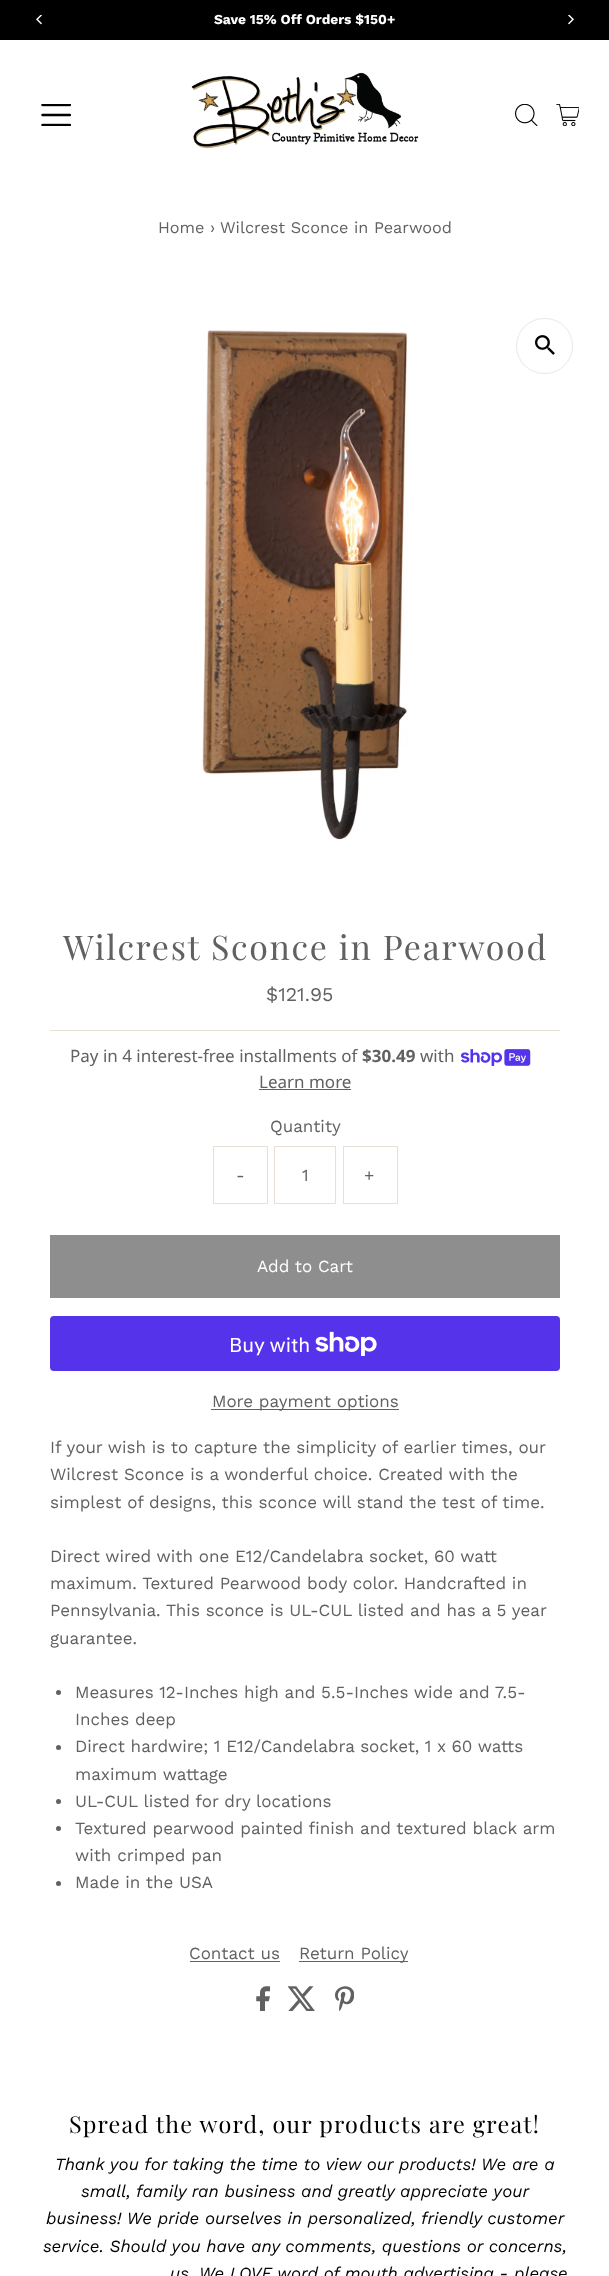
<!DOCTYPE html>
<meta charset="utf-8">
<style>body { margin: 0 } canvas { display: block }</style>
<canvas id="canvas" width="609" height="2276"></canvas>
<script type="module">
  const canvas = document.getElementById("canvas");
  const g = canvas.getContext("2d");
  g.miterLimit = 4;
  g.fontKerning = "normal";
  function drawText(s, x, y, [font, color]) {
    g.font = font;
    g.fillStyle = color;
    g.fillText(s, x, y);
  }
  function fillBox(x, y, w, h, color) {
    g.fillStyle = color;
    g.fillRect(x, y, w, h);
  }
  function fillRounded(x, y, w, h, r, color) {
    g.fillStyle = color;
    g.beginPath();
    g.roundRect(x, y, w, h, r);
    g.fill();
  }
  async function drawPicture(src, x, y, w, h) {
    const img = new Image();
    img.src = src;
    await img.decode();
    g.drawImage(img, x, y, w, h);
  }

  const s1 = ["bold 13.75px Work Sans", "#FFFFFF"];
  const s2 = ["16.25px Work Sans", "#616161"];
  const s3 = ["34px Playfair Display", "#616161"];
  const s4 = ["19.5px Work Sans", "#616161"];
  const s5 = ["17px Noto Sans", "#616161"];
  const s6 = ["bold 17px Noto Sans", "#616161"];
  const s7 = ["17px Work Sans", "#616161"];
  const s8 = ["17px Work Sans", "#FFFFFF"];
  const s9 = ["20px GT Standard", "#FFFFFF"];
  const s10 = ["23.4px Playfair Display", "#000000"];
  const s11 = ["italic 17px Work Sans", "#000000"];

  fillBox(0, 0, 609, 2276, "#FFFFFF");
  fillBox(0, 0, 609, 40, "#000000");
  await drawPicture("pic1.png", 36, 15, 6, 10);
  drawText("Save 15% Off Orders $150+", 214, 24, s1);
  await drawPicture("pic2.png", 568, 15, 6, 10);
  await drawPicture("pic3.png", 41, 104, 30, 22);
  await drawPicture("pic4.png", 191, 72, 228, 77);
  await drawPicture("pic5.png", 515, 104, 23, 22);
  await drawPicture("pic6.png", 556, 104, 23, 22);
  drawText("Home ›", 158, 233, s2);
  drawText("Wilcrest Sconce in Pearwood", 220, 233, s2);
  await drawPicture("pic7.png", 202, 329, 206, 511);
  g.beginPath();
  g.roundRect(516.5, 318.5, 56, 55, 27.5);
  g.strokeStyle = "#E7E7E7";
  g.stroke();
  await drawPicture("pic8.png", 535, 335, 20, 20);
  g.letterSpacing = "1.7px";
  drawText("Wilcrest Sconce in Pearwood", 63, 960, s3);
  fillBox(50, 1030, 510, 1, "#E6E0D7");
  g.letterSpacing = "0px";
  drawText("$121.95", 266, 1001, s4);
  drawText("Pay in 4 interest-free installments of", 70, 1062, s5);
  drawText("$30.49", 362, 1062, s6);
  drawText("with", 420, 1062, s5);
  await drawPicture("pic9.png", 461, 1049, 70, 17);
  drawText("Learn more", 259, 1088, s5);
  fillBox(259, 1089, 92, 1, "#616161");
  drawText("Quantity", 270, 1132, s7);
  g.strokeStyle = "#E6E0D7";
  g.strokeRect(213.5, 1146.5, 54, 57);
  drawText("-", 236, 1181, s7);
  g.strokeRect(274.5, 1146.5, 61, 57);
  drawText("1", 302, 1181, s7);
  g.strokeRect(343.5, 1146.5, 54, 57);
  drawText("+", 364, 1181, s7);
  fillBox(50, 1235, 510, 63, "#8E8E8E");
  drawText("Add to Cart", 257, 1272, s8);
  fillRounded(50, 1316, 510, 55, 4, "#5433EB");
  drawText("Buy with", 229, 1352, s9);
  await drawPicture("pic10.png", 315, 1331, 62, 25);
  fillBox(211, 1409, 188, 1, "#616161");
  drawText("More payment options", 212, 1407, s7);
  drawText("If your wish is to capture the simplicity of earlier times, our", 50, 1453, s7);
  drawText("Wilcrest Sconce is a wonderful choice. Created with the", 50, 1480, s7);
  drawText("simplest of designs, this sconce will stand the test of time.", 50, 1508, s7);
  drawText("Direct wired with one E12/Candelabra socket, 60 watt", 50, 1562, s7);
  drawText("maximum. Textured Pearwood body color. Handcrafted in", 50, 1589, s7);
  drawText("Pennsylvania. This sconce is UL-CUL listed and has a 5 year", 50, 1616, s7);
  drawText("guarantee.", 50, 1644, s7);
  g.beginPath();
  g.arc(58.5, 1692.5, 2.5, 0, Math.PI * 2);
  g.fill();
  drawText("Measures 12-Inches high and 5.5-Inches wide and 7.5-", 75, 1698, s7);
  drawText("Inches deep", 75, 1725, s7);
  g.beginPath();
  g.arc(58.5, 1747.5, 2.5, 0, Math.PI * 2);
  g.fill();
  drawText("Direct hardwire; 1 E12/Candelabra socket, 1 x 60 watts", 75, 1752, s7);
  drawText("maximum wattage", 75, 1780, s7);
  g.beginPath();
  g.arc(58.5, 1801.5, 2.5, 0, Math.PI * 2);
  g.fill();
  drawText("UL-CUL listed for dry locations", 75, 1807, s7);
  g.beginPath();
  g.arc(58.5, 1828.5, 2.5, 0, Math.PI * 2);
  g.fill();
  drawText("Textured pearwood painted finish and textured black arm", 75, 1834, s7);
  drawText("with crimped pan", 75, 1861, s7);
  g.beginPath();
  g.arc(58.5, 1883.5, 2.5, 0, Math.PI * 2);
  g.fill();
  drawText("Made in the USA", 75, 1888, s7);
  drawText("Contact us", 189, 1959, s7);
  fillBox(190, 1961, 90, 1, "#616161");
  fillBox(299, 1961, 109, 1, "#616161");
  drawText("Return Policy", 299, 1959, s7);
  await drawPicture("pic11.png", 256, 1986, 14, 25);
  await drawPicture("pic12.png", 288, 1986, 27, 25);
  await drawPicture("pic13.png", 335, 1986, 19, 25);
  g.letterSpacing = "1.15px";
  drawText("Spread the word, our products are great!", 69, 2133, s10);
  g.letterSpacing = "0px";
  drawText("Thank you for taking the time to view our products! We are a", 55, 2170, s11);
  drawText("small, family ran business and greatly appreciate your", 81, 2197, s11);
  drawText("business! We pride ourselves in personalized, friendly customer", 46, 2224, s11);
  drawText("service. Should you have any comments, questions or concerns,", 43, 2252, s11);
  drawText("us. We LOVE word of mouth advertising - please", 170, 2279, s11);
</script>
